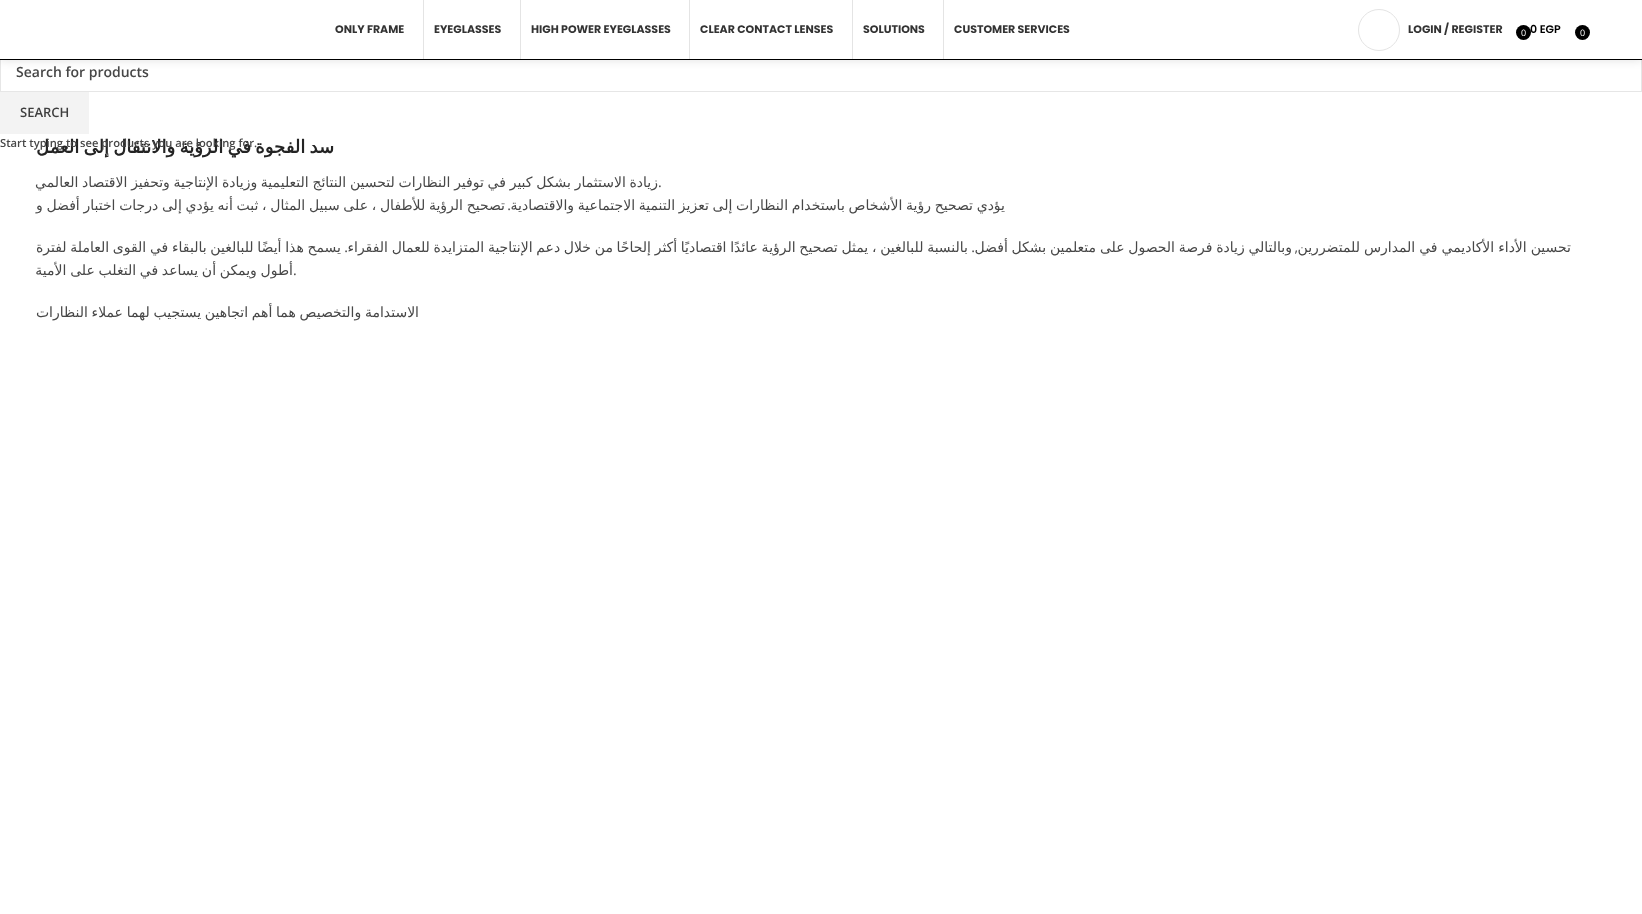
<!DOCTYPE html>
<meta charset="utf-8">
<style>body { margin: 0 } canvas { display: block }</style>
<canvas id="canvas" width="1642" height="914"></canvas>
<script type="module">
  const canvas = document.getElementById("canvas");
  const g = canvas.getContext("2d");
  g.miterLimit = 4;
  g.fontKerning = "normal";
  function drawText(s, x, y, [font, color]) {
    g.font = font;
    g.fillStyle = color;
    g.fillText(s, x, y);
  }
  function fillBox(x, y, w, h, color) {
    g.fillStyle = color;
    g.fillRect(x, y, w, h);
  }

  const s1 = ["9px Open Sans", "#FFFFFF"];
  const s2 = ["600 11px Poppins", "#000000"];
  const s3 = ["bold 11px Poppins", "#333333"];
  const s4 = ["bold 18px DejaVu Sans", "#242424"];
  const s5 = ["14px Open Sans", "#474747"];
  const s6 = ["14px DejaVu Sans", "#474747"];
  const s7 = ["600 14px Open Sans", "#474747"];
  const s8 = ["600 13px Open Sans", "#3E3E3E"];
  const s9 = ["600 11.2px Open Sans", "#474747"];

  fillBox(0, 0, 1642, 914, "#FFFFFF");
  g.strokeStyle = "#E6E6E6";
  g.strokeRect(0.5, 50.5, 1641, 41);
  g.fillStyle = "rgba(0, 0, 0, 0.1)";
  g.filter = "blur(4px)";
  g.beginPath();
  g.rect(0, 1, 1642, 60);
  g.fill();
  g.filter = "none";
  fillBox(0, 0, 1642, 59, "#FFFFFF");
  fillBox(0, 59, 1642, 1, "#000000");
  g.beginPath();
  g.arc(1582.5, 32.5, 7.5, 0, Math.PI * 2);
  g.fill();
  drawText("0", 1580, 36, s1);
  drawText("0 EGP", 1530, 33, s2);
  g.beginPath();
  g.arc(1523.5, 32.5, 7.5, 0, Math.PI * 2);
  g.fill();
  drawText("0", 1521, 36, s1);
  drawText("LOGIN / REGISTER", 1408, 33, s3);
  g.beginPath();
  g.arc(1379, 30, 20.5, 0, Math.PI * 2);
  g.strokeStyle = "#E4E4E4";
  g.stroke();
  drawText("CUSTOMER SERVICES", 954, 33, s3);
  fillBox(943, 0, 1, 59, "#E4E4E4");
  drawText("SOLUTIONS", 863, 33, s3);
  fillBox(852, 0, 1, 59, "#E4E4E4");
  drawText("CLEAR CONTACT LENSES", 700, 33, s3);
  fillBox(689, 0, 1, 59, "#E4E4E4");
  drawText("HIGH POWER EYEGLASSES", 531, 33, s3);
  fillBox(520, 0, 1, 59, "#E4E4E4");
  drawText("EYEGLASSES", 434, 33, s3);
  fillBox(423, 0, 1, 59, "#E4E4E4");
  drawText("ONLY FRAME", 335, 33, s3);
  g.wordSpacing = "-1.5px";
  g.direction = "rtl";
  drawText("سد الفجوة في الرؤية والانتقال إلى العمل", 334, 153, s4);
  g.wordSpacing = "0px";
  g.direction = "ltr";
  drawText(".", 658, 187, s5);
  g.wordSpacing = "-0.75px";
  g.direction = "rtl";
  drawText("زيادة الاستثمار بشكل كبير في توفير النظارات لتحسين النتائج التعليمية وزيادة الإنتاجية وتحفيز الاقتصاد العالمي", 658, 187, s6);
  drawText("يؤدي تصحيح رؤية الأشخاص باستخدام النظارات إلى تعزيز التنمية الاجتماعية والاقتصادية", 1005, 210, s6);
  g.wordSpacing = "0px";
  drawText(".", 511, 210, s5);
  g.wordSpacing = "-0.75px";
  drawText("تصحيح الرؤية للأطفال ، على سبيل المثال ، ثبت أنه يؤدي إلى درجات اختبار أفضل و", 505, 210, s6);
  g.wordSpacing = "-0.5px";
  drawText("تحسين الأداء الأكاديمي في المدارس للمتضررين", 1571, 252, s6);
  g.wordSpacing = "0px";
  drawText(",", 1298, 252, s5);
  g.wordSpacing = "-0.75px";
  drawText("وبالتالي زيادة فرصة الحصول على", 1292, 252, s6);
  drawText("متعلمين بشكل أفضل", 1096, 252, s6);
  g.wordSpacing = "0px";
  drawText(".", 975, 252, s5);
  g.wordSpacing = "-0.75px";
  drawText("بالنسبة للبالغين ، يمثل تصحيح الرؤية عائدًا اقتصاديًا أكثر إلحاحًا من خلال دعم الإنتاجية المتزايدة للعمال الفقراء", 968, 252, s6);
  g.wordSpacing = "0px";
  drawText(".", 348, 252, s5);
  g.wordSpacing = "-0.75px";
  drawText("يسمح هذا أيضًا للبالغين بالبقاء في القوى العاملة لفترة", 341, 252, s6);
  g.wordSpacing = "0px";
  g.direction = "ltr";
  drawText(".", 293, 275, s5);
  g.wordSpacing = "-0.75px";
  g.direction = "rtl";
  drawText("أطول ويمكن أن يساعد في التغلب على الأمية", 293, 275, s6);
  drawText("الاستدامة والتخصيص هما أهم اتجاهين يستجيب لهما عملاء النظارات", 419, 317, s6);
  g.wordSpacing = "0px";
  g.direction = "ltr";
  drawText("Search for products", 16, 77, s7);
  fillBox(0, 92, 89, 42, "#F3F3F3");
  drawText("SEARCH", 20, 117, s8);
  drawText("Start typing to see products you are looking for.", 0, 147, s9);
</script>
